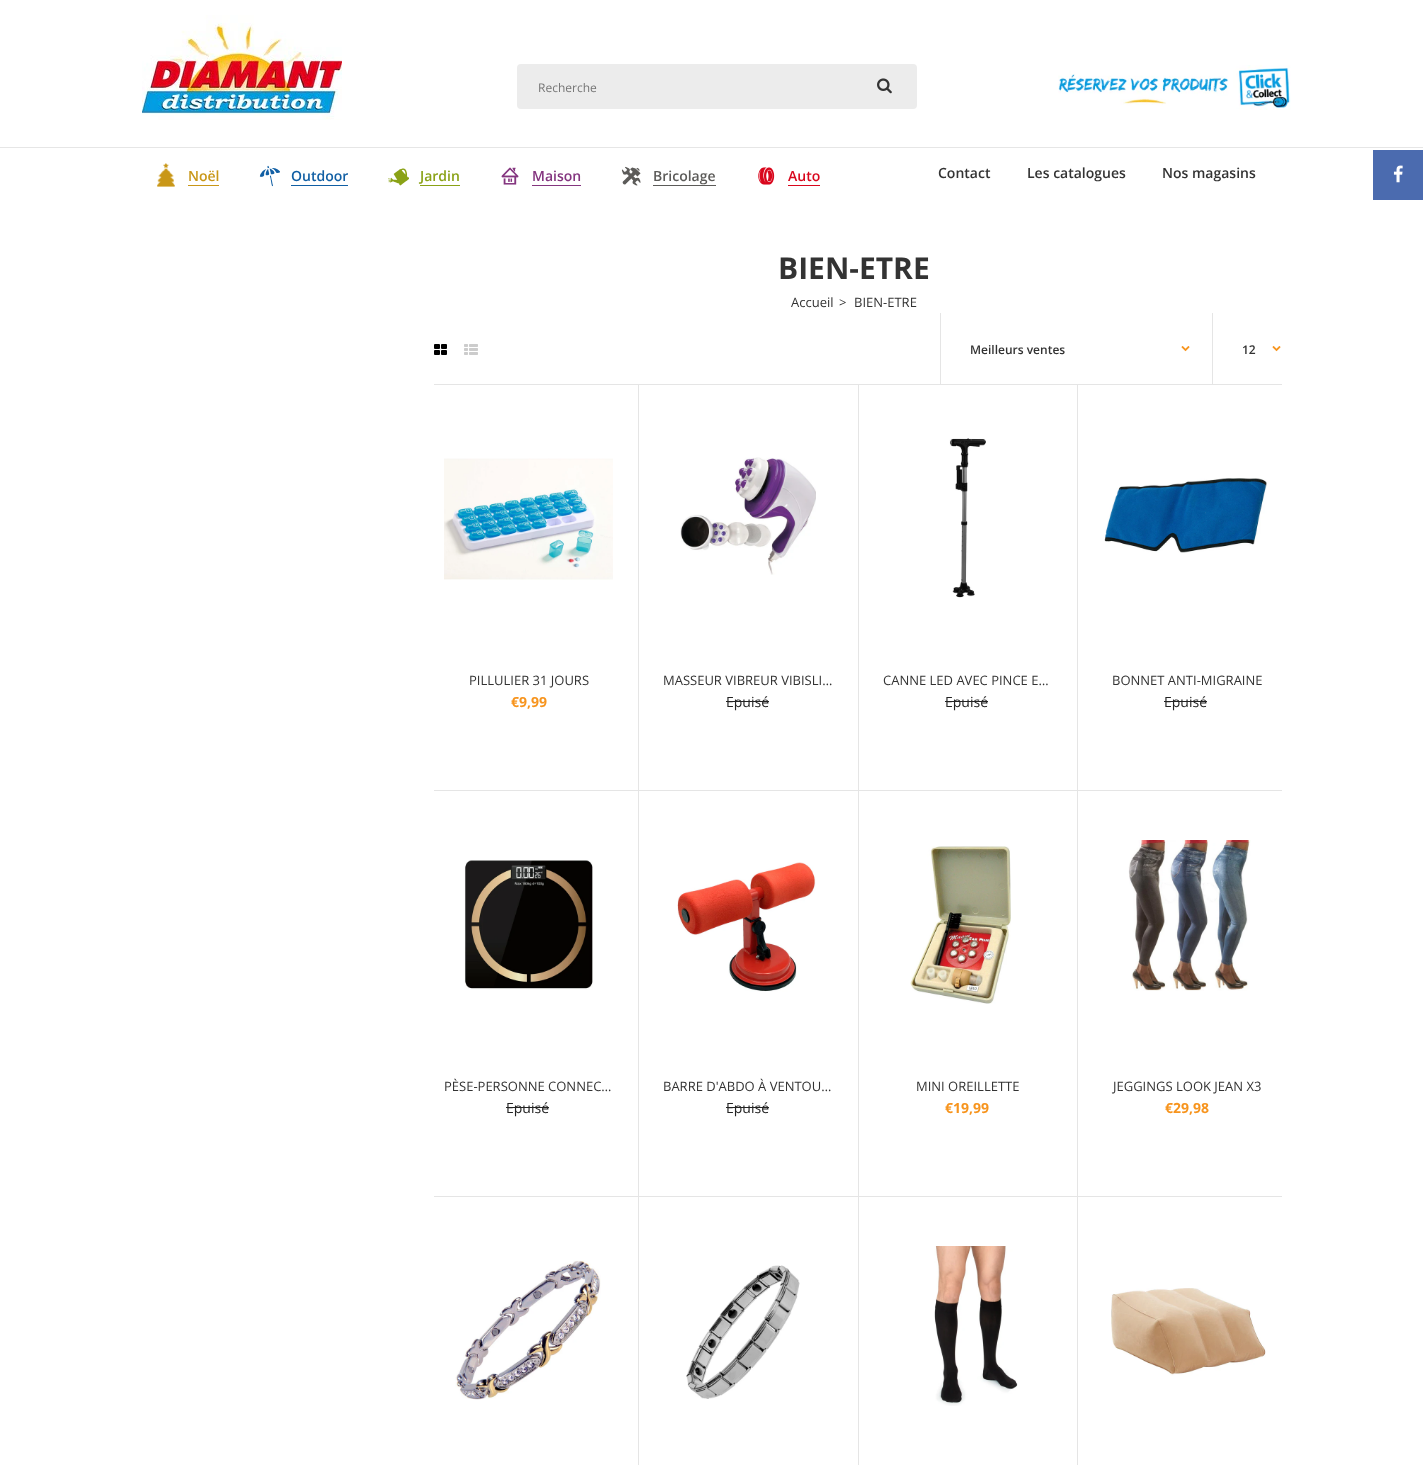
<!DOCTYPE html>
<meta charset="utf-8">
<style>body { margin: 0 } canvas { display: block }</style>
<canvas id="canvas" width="1423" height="1465"></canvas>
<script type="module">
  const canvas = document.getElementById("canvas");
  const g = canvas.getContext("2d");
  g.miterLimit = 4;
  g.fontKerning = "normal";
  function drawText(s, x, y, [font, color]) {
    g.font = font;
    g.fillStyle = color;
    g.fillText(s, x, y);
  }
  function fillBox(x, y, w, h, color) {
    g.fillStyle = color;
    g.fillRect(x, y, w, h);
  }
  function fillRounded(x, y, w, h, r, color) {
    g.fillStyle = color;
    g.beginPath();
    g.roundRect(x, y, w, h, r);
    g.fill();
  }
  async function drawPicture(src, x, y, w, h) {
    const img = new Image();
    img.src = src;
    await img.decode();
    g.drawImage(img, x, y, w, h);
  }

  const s1 = ["12px Open Sans", "#757575"];
  const s2 = ["600 14px Open Sans", "#C99718"];
  const s3 = ["600 14px Open Sans", "#115FA4"];
  const s4 = ["600 14px Open Sans", "#8AA216"];
  const s5 = ["600 14px Open Sans", "#84357F"];
  const s6 = ["600 14px Open Sans", "#5C5B59"];
  const s7 = ["600 14px Open Sans", "#D9071D"];
  const s8 = ["600 14px Open Sans", "#333333"];
  const s9 = ["bold 30px Open Sans", "#333333"];
  const s10 = ["13px Open Sans", "#333333"];
  const s11 = ["600 12px Open Sans", "#333333"];
  const s12 = ["bold 14px Open Sans", "#F7941D"];
  const s13 = ["14px Open Sans", "#232323"];

  fillBox(0, 0, 1423, 1465, "#FFFFFF");
  await drawPicture("pic1.png", 142, 15, 200, 105);
  fillRounded(517, 64, 400, 45, 4, "#ECECEC");
  drawText("Recherche", 538, 92, s1);
  await drawPicture("pic2.png", 877, 78, 15, 16);
  await drawPicture("pic3.png", 1058, 65, 233, 45);
  fillBox(0, 147, 1423, 1, "#E6E6E6");
  await drawPicture("pic4.png", 157, 163, 18, 24);
  drawText("Noël", 188, 181, s2);
  fillBox(188, 185, 31, 1, "#C99718");
  await drawPicture("pic5.png", 259, 165, 21, 22);
  drawText("Outdoor", 291, 181, s3);
  fillBox(291, 185, 57, 1, "#115FA4");
  await drawPicture("pic6.png", 388, 168, 21, 18);
  drawText("Jardin", 420, 181, s4);
  fillBox(420, 185, 40, 1, "#8AA216");
  await drawPicture("pic7.png", 501, 167, 18, 18);
  drawText("Maison", 532, 181, s5);
  fillBox(532, 185, 49, 1, "#84357F");
  await drawPicture("pic8.png", 621, 166, 20, 20);
  drawText("Bricolage", 653, 181, s6);
  fillBox(653, 185, 63, 1, "#5C5B59");
  await drawPicture("pic9.png", 758, 167, 17, 18);
  drawText("Auto", 788, 181, s7);
  fillBox(788, 185, 32, 1, "#D9071D");
  drawText("Contact", 938, 178, s8);
  drawText("Les catalogues", 1027, 178, s8);
  drawText("Nos magasins", 1162, 178, s8);
  drawText("BIEN-ETRE", 778, 279, s9);
  drawText("Accueil", 791, 307, s10);
  drawText(">", 839, 307, s10);
  drawText("BIEN-ETRE", 854, 307, s10);
  await drawPicture("pic10.png", 434, 344, 13, 11);
  await drawPicture("pic11.png", 464, 344, 14, 11);
  fillBox(940, 313, 1, 71, "#E5E5E5");
  drawText("Meilleurs ventes", 970, 354, s11);
  await drawPicture("pic12.png", 1181, 346, 9, 6);
  fillBox(1212, 313, 1, 71, "#E5E5E5");
  drawText("12", 1242, 354, s11);
  await drawPicture("pic12.png", 1272, 346, 9, 6);
  fillBox(434, 384, 848, 1, "#E5E5E5");
  await drawPicture("pic13.png", 444, 458, 169, 122);
  fillBox(638, 385, 1, 405, "#E5E5E5");
  drawText("PILLULIER 31 JOURS", 469, 685, s10);
  drawText("€9,99", 511, 707, s12);
  await drawPicture("pic14.png", 680, 457, 136, 118);
  fillBox(858, 385, 1, 405, "#E5E5E5");
  drawText("MASSEUR VIBREUR VIBISLI…", 663, 685, s10);
  drawText("Epuisé", 726, 707, s13);
  fillBox(726, 701, 43, 1, "#232323");
  await drawPicture("pic15.png", 949, 438, 37, 160);
  fillBox(1077, 385, 1, 405, "#E5E5E5");
  drawText("CANNE LED AVEC PINCE E…", 883, 685, s10);
  drawText("Epuisé", 945, 707, s13);
  fillBox(945, 701, 43, 1, "#232323");
  await drawPicture("pic16.png", 1104, 478, 163, 75);
  drawText("BONNET ANTI-MIGRAINE", 1112, 685, s10);
  drawText("Epuisé", 1164, 707, s13);
  fillBox(1164, 701, 43, 1, "#232323");
  fillBox(434, 790, 848, 1, "#E5E5E5");
  await drawPicture("pic17.png", 464, 860, 129, 130);
  fillBox(638, 791, 1, 405, "#E5E5E5");
  drawText("PÈSE-PERSONNE CONNEC…", 444, 1091, s10);
  drawText("Epuisé", 506, 1113, s13);
  fillBox(506, 1107, 43, 1, "#232323");
  await drawPicture("pic18.png", 677, 862, 139, 130);
  fillBox(858, 791, 1, 405, "#E5E5E5");
  drawText("BARRE D'ABDO À VENTOU…", 663, 1091, s10);
  drawText("Epuisé", 726, 1113, s13);
  fillBox(726, 1107, 43, 1, "#232323");
  await drawPicture("pic19.png", 910, 846, 101, 158);
  fillBox(1077, 791, 1, 405, "#E5E5E5");
  drawText("MINI OREILLETTE", 916, 1091, s10);
  drawText("€19,99", 945, 1113, s12);
  await drawPicture("pic20.png", 1128, 840, 123, 151);
  drawText("JEGGINGS LOOK JEAN X3", 1113, 1091, s10);
  drawText("€29,98", 1165, 1113, s12);
  fillBox(434, 1196, 848, 1, "#E5E5E5");
  await drawPicture("pic21.png", 455, 1260, 146, 140);
  fillBox(638, 1197, 1, 268, "#E5E5E5");
  await drawPicture("pic22.png", 686, 1265, 114, 134);
  fillBox(858, 1197, 1, 268, "#E5E5E5");
  await drawPicture("pic23.png", 934, 1246, 84, 160);
  fillBox(1077, 1197, 1, 268, "#E5E5E5");
  await drawPicture("pic24.png", 1111, 1288, 155, 88);
  fillBox(1373, 150, 50, 50, "#4B6BAF");
  await drawPicture("pic25.png", 1393, 165, 10, 18);
</script>
